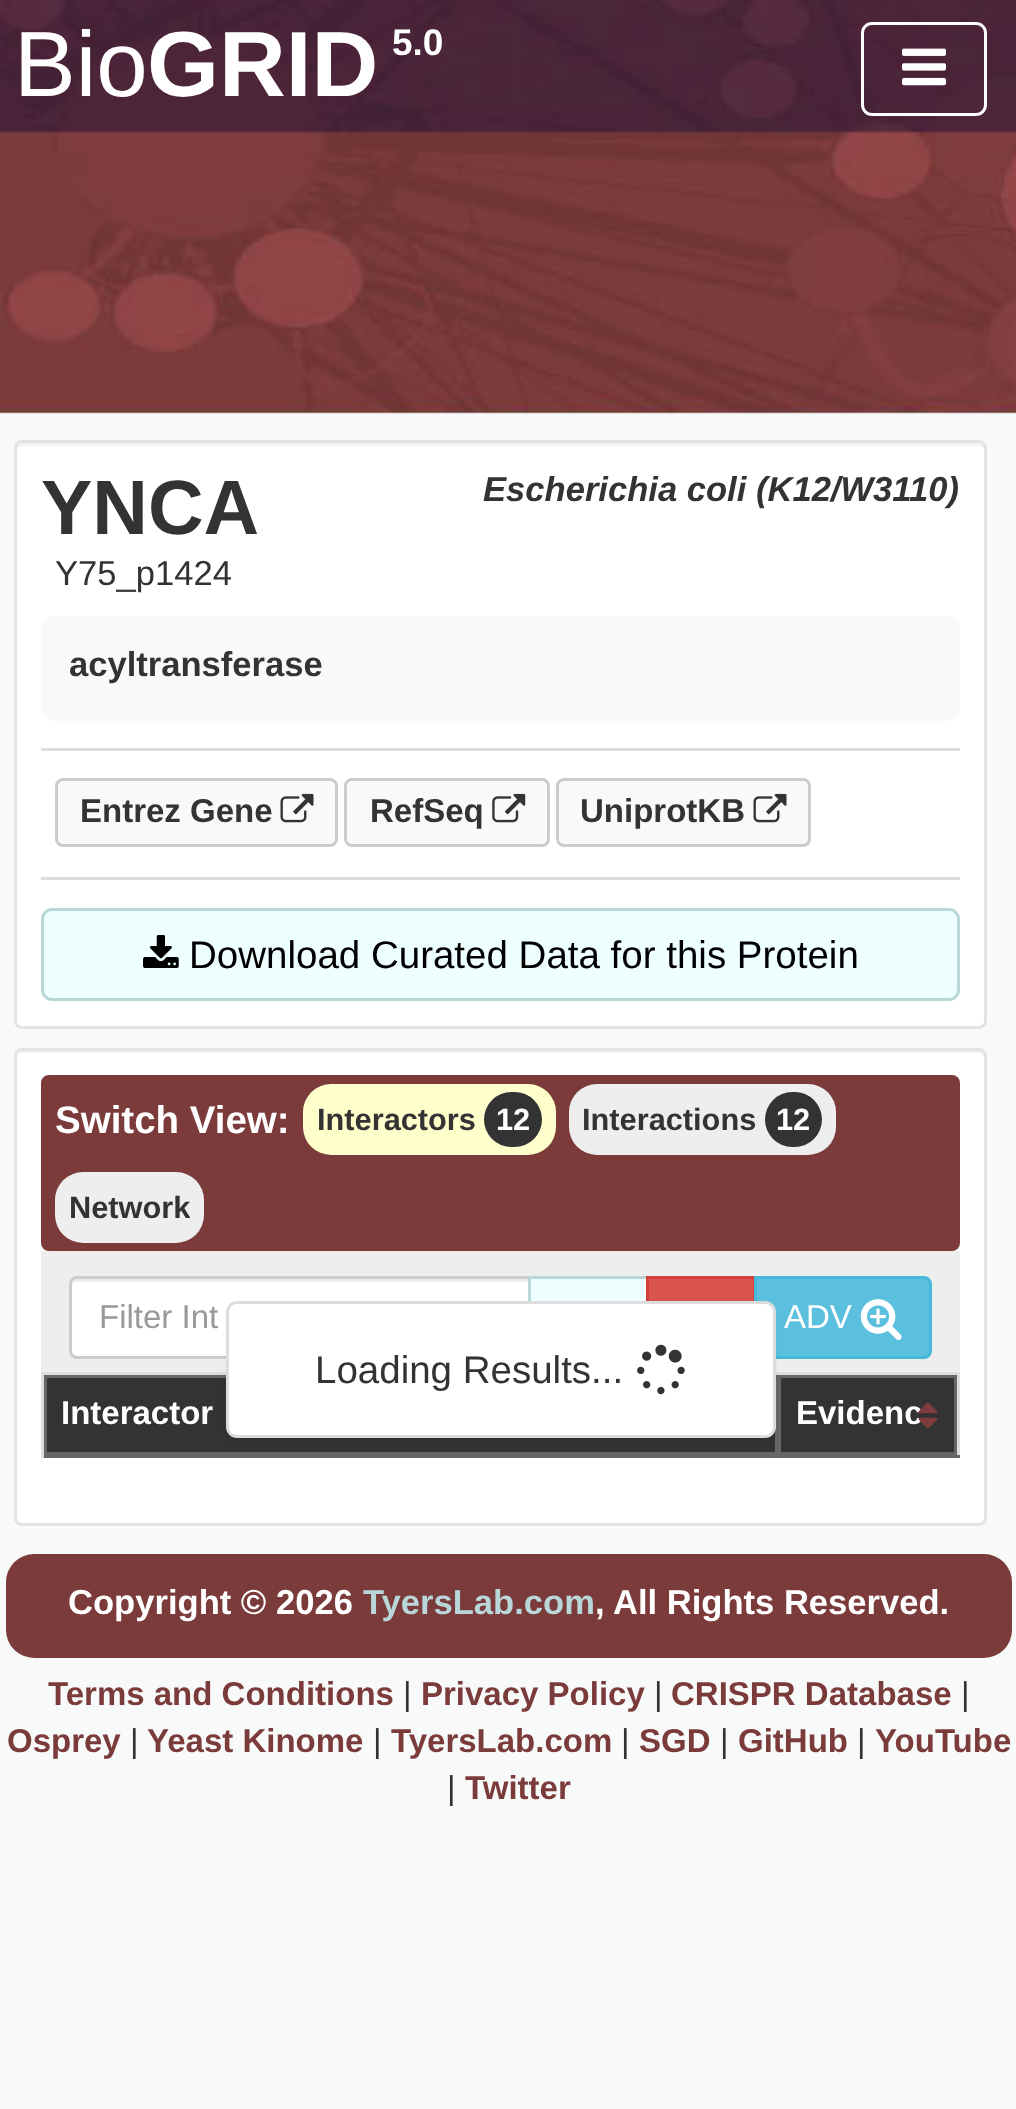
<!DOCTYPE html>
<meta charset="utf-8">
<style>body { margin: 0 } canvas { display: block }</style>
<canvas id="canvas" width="1016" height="2109"></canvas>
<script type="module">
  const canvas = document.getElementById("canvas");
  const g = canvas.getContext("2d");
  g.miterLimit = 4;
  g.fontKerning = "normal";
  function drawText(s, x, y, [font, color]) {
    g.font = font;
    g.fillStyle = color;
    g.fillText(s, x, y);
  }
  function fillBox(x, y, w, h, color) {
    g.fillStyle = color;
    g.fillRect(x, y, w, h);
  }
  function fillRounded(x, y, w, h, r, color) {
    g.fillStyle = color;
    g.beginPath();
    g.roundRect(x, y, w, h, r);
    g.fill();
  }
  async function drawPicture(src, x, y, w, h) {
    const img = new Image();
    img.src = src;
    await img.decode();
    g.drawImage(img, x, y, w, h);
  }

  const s1 = ["92.5px Liberation Sans", "#FFFFFF"];
  const s2 = ["bold 92.5px Liberation Sans", "#FFFFFF"];
  const s3 = ["bold 37px Liberation Sans", "#FFFFFF"];
  const s4 = ["bold 77px Liberation Sans", "#333333"];
  const s5 = ["italic bold 34.6px Liberation Sans", "#333333"];
  const s6 = ["34.6px Liberation Sans", "#333333"];
  const s7 = ["bold 34.6px Liberation Sans", "#333333"];
  const s8 = ["bold 33px Liberation Sans", "#333333"];
  const s9 = ["38.5px Liberation Sans", "#000000"];
  const s10 = ["bold 38.5px Liberation Sans", "#FFFFFF"];
  const s11 = ["bold 30.75px Liberation Sans", "#333333"];
  const s12 = ["bold 30.75px Liberation Sans", "#FFFFFF"];
  const s13 = ["33px Liberation Sans", "#999999"];
  const s14 = ["33px Liberation Sans", "#FFFFFF"];
  const s15 = ["38.5px Liberation Sans", "#333333"];
  const s16 = ["bold 33px Liberation Sans", "#FFFFFF"];
  const s17 = ["bold 34.6px Liberation Sans", "#FFFFFF"];
  const s18 = ["bold 34.6px Liberation Sans", "#B9D7D9"];
  const s19 = ["bold 33px Liberation Sans", "#7B3B3B"];
  const s20 = ["33px Liberation Sans", "#333333"];

  fillBox(0, 0, 1016, 2109, "#F8FAF9");
  await drawPicture("pic1.png", 0, 412, 1016, 2);
  await drawPicture("pic2.png", 0, 0, 1016, 413);
  drawText("Bio", 14, 96, s1);
  drawText("GRID", 147, 96, s2);
  drawText("5.0", 392, 55, s3);
  g.beginPath();
  g.roundRect(862.5, 23.5, 123, 91, 9.5);
  g.strokeStyle = "#FFFFFF";
  g.lineWidth = 3;
  g.stroke();
  await drawPicture("pic3.png", 902, 48, 44, 38);
  fillRounded(14, 440, 973, 589, 8, "#FFFFFF");
  g.fillStyle = "#F2F2F2";
  g.beginPath();
  g.moveTo(22, 446);
  g.lineTo(979, 446);
  g.bezierCurveTo(982, 446, 984, 448, 984, 451);
  g.lineTo(984, 1023);
  g.bezierCurveTo(985, 1022, 985, 1021, 985, 1020);
  g.lineTo(985, 449);
  g.bezierCurveTo(985, 446, 982, 443, 979, 443);
  g.lineTo(23, 443);
  g.bezierCurveTo(20, 443, 17, 445, 17, 448);
  g.bezierCurveTo(18, 447, 20, 446, 22, 446);
  g.closePath();
  g.fill();
  g.beginPath();
  g.roundRect(15.5, 441.5, 970, 586, 6.5);
  g.strokeStyle = "#E3E3E3";
  g.stroke();
  drawText("YNCA", 41, 534, s4);
  drawText("Escherichia coli (K12/W3110)", 483, 501, s5);
  drawText("Y75_p1424", 55, 585, s6);
  fillRounded(41, 616, 919, 105, 14, "#F8FAF9");
  drawText("acyltransferase", 69, 676, s7);
  fillBox(41, 748, 919, 3, "#DDDDDD");
  fillBox(41, 877, 919, 3, "#DDDDDD");
  g.fillStyle = "#F8FAF9";
  g.beginPath();
  g.roundRect(56.5, 779.5, 280, 66, 6.5);
  g.fill();
  g.strokeStyle = "#CCCCCC";
  g.stroke();
  drawText("Entrez Gene", 80, 822, s8);
  await drawPicture("pic4.png", 280, 793, 34, 30);
  g.fillStyle = "#F8FAF9";
  g.beginPath();
  g.roundRect(345.5, 779.5, 203, 66, 6.5);
  g.fill();
  g.stroke();
  drawText("RefSeq", 370, 822, s8);
  await drawPicture("pic5.png", 492, 793, 34, 30);
  g.fillStyle = "#F8FAF9";
  g.beginPath();
  g.roundRect(557.5, 779.5, 252, 66, 6.5);
  g.fill();
  g.stroke();
  drawText("UniprotKB", 580, 822, s8);
  await drawPicture("pic4.png", 753, 793, 34, 30);
  g.fillStyle = "#EEFFFF";
  g.beginPath();
  g.roundRect(42.5, 909.5, 916, 90, 9.5);
  g.fill();
  g.strokeStyle = "#B9D7D9";
  g.stroke();
  await drawPicture("pic6.png", 143, 935, 36, 33);
  drawText("Download Curated Data for this Protein", 189, 968, s9);
  fillRounded(14, 1048, 973, 478, 8, "#FFFFFF");
  g.fillStyle = "#F2F2F2";
  g.beginPath();
  g.moveTo(22, 1053);
  g.lineTo(979, 1053);
  g.bezierCurveTo(982, 1053, 984, 1056, 984, 1059);
  g.lineTo(984, 1521);
  g.bezierCurveTo(985, 1520, 985, 1519, 985, 1518);
  g.lineTo(985, 1057);
  g.bezierCurveTo(985, 1054, 982, 1051, 979, 1051);
  g.lineTo(23, 1051);
  g.bezierCurveTo(20, 1051, 18, 1053, 17, 1056);
  g.bezierCurveTo(18, 1054, 20, 1053, 22, 1053);
  g.closePath();
  g.fill();
  g.beginPath();
  g.roundRect(15.5, 1049.5, 970, 475, 6.5);
  g.strokeStyle = "#E3E3E3";
  g.stroke();
  fillRounded(41, 1075, 919, 176, 8, "#7B3B3B");
  drawText("Switch View:", 55, 1133, s10);
  fillRounded(303, 1084, 253, 71, 28, "#FFFFCC");
  drawText("Interactors", 317, 1130, s11);
  fillRounded(484, 1092, 58, 55, 27.5, "#333333");
  drawText("12", 496, 1130, s12);
  fillRounded(569, 1084, 267, 71, 28, "#EEEEEE");
  drawText("Interactions", 582, 1130, s11);
  fillRounded(765, 1092, 57, 55, 27.5, "#333333");
  drawText("12", 776, 1130, s12);
  fillRounded(55, 1172, 149, 71, 28, "#EEEEEE");
  drawText("Network", 69, 1218, s11);
  fillBox(41, 1251, 919, 121, "#EEEEEE");
  g.fillStyle = "#FFFFFF";
  g.beginPath();
  g.roundRect(69, 1276, 462, 83, [8, 0, 0, 8]);
  g.fill();
  g.fillStyle = "#ECECEC";
  g.beginPath();
  g.moveTo(77, 1282);
  g.lineTo(528, 1282);
  g.lineTo(528, 1279);
  g.lineTo(78, 1279);
  g.bezierCurveTo(73, 1279, 72, 1283, 72, 1287);
  g.bezierCurveTo(72, 1284, 74, 1282, 77, 1282);
  g.closePath();
  g.fill();
  g.beginPath();
  g.roundRect(70.5, 1277.5, 459, 80, [6.5, 0, 0, 6.5]);
  g.strokeStyle = "#CCCCCC";
  g.stroke();
  drawText("Filter Int", 99, 1328, s13);
  fillBox(531, 1279, 115, 22, "#EEFFFF");
  g.strokeStyle = "#B9D7D9";
  g.strokeRect(529.5, 1277.5, 118, 80);
  fillBox(649, 1279, 104, 22, "#D9534F");
  g.strokeStyle = "#D43F3A";
  g.strokeRect(647.5, 1277.5, 107, 80);
  g.fillStyle = "#5BC0DE";
  g.beginPath();
  g.roundRect(755.5, 1277.5, 175, 80, [0, 6.5, 6.5, 0]);
  g.fill();
  g.strokeStyle = "#46B8DA";
  g.stroke();
  drawText("ADV", 784, 1328, s14);
  await drawPicture("pic7.png", 860, 1299, 42, 41);
  fillBox(41, 1372, 919, 3, "#DDDDDD");
  fillBox(47, 1378, 907, 74, "#333333");
  g.strokeStyle = "#666666";
  g.strokeRect(45.5, 1376.5, 731, 77);
  g.strokeRect(779.5, 1376.5, 176, 77);
  g.fillStyle = "rgba(0, 0, 0, 0.05)";
  g.filter = "blur(1.5px)";
  g.beginPath();
  g.roundRect(226, 1304, 550, 137, 11);
  g.fill();
  g.filter = "none";
  g.fillStyle = "#FFFFFF";
  g.beginPath();
  g.roundRect(227.5, 1302.5, 547, 134, 9.5);
  g.fill();
  g.strokeStyle = "#DDDDDD";
  g.stroke();
  drawText("Loading Results...", 315, 1383, s15);
  await drawPicture("pic8.png", 637, 1344, 48, 51);
  fillBox(957, 1372, 3, 86, "#DDDDDD");
  fillBox(41, 1455, 919, 3, "#666666");
  fillBox(41, 1372, 3, 86, "#DDDDDD");
  drawText("Interactor", 61, 1424, s16);
  drawText("Evidenc", 796, 1424, s16);
  await drawPicture("pic9.png", 918, 1402, 20, 27);
  fillRounded(6, 1554, 1006, 104, 28, "#7B3B3B");
  drawText("Copyright © 2026", 68, 1614, s17);
  drawText("TyersLab.com", 363, 1614, s18);
  drawText(", All Rights Reserved.", 595, 1614, s17);
  drawText("Terms and Conditions", 48, 1705, s19);
  drawText("|", 403, 1705, s20);
  drawText("Privacy Policy", 421, 1705, s19);
  drawText("|", 654, 1705, s20);
  drawText("CRISPR Database", 671, 1705, s19);
  drawText("|", 961, 1705, s20);
  drawText("Osprey", 7, 1752, s19);
  drawText("|", 130, 1752, s20);
  drawText("Yeast Kinome", 147, 1752, s19);
  drawText("|", 373, 1752, s20);
  drawText("TyersLab.com", 391, 1752, s19);
  drawText("|", 621, 1752, s20);
  drawText("SGD", 639, 1752, s19);
  drawText("|", 720, 1752, s20);
  drawText("GitHub", 738, 1752, s19);
  drawText("|", 857, 1752, s20);
  drawText("YouTube", 875, 1752, s19);
  drawText("|", 447, 1799, s20);
  drawText("Twitter", 465, 1799, s19);
</script>
